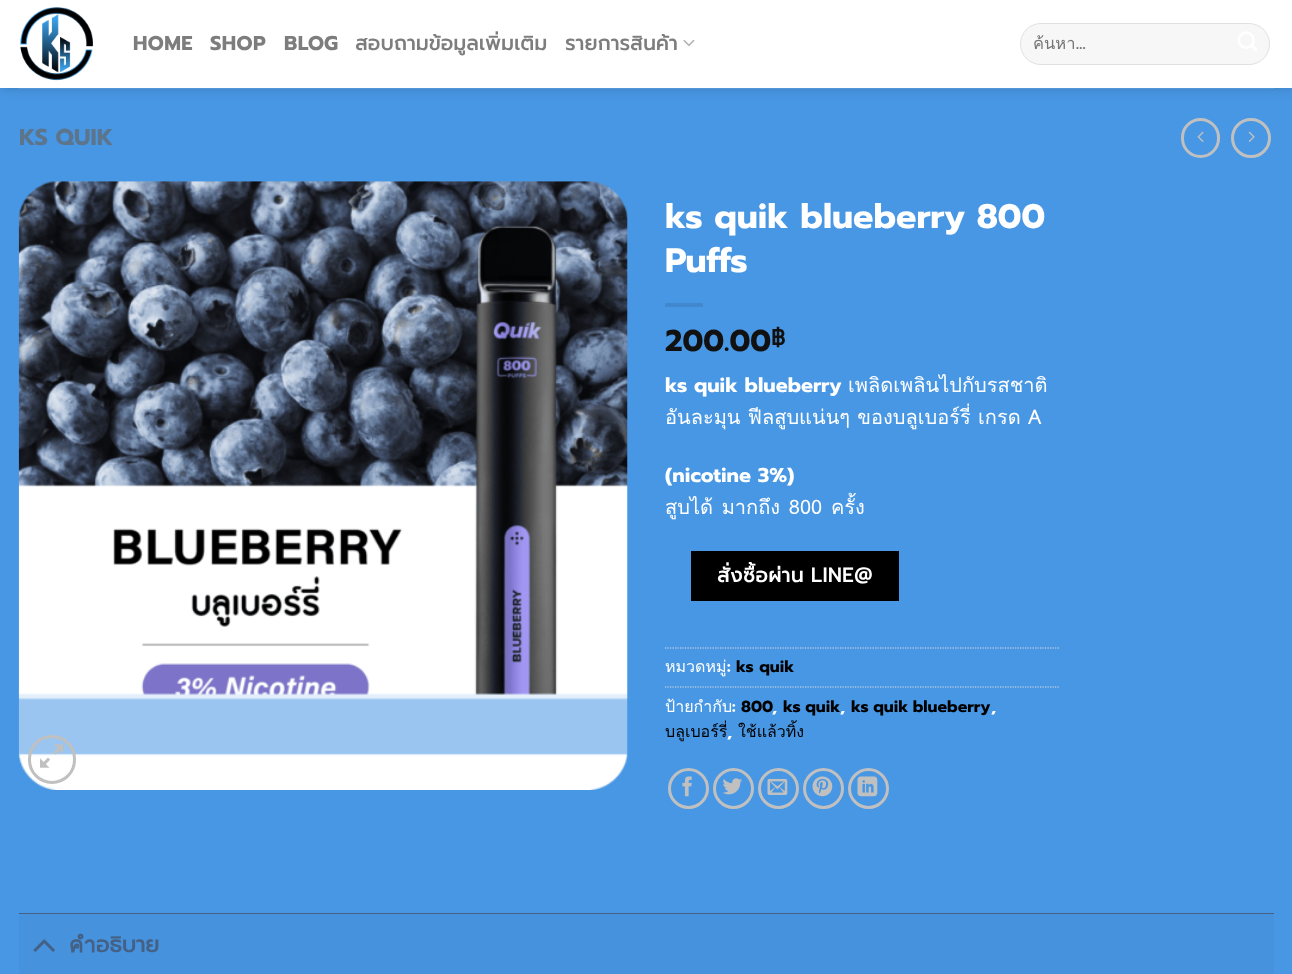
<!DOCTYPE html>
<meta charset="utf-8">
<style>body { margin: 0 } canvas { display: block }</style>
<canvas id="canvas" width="1292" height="974"></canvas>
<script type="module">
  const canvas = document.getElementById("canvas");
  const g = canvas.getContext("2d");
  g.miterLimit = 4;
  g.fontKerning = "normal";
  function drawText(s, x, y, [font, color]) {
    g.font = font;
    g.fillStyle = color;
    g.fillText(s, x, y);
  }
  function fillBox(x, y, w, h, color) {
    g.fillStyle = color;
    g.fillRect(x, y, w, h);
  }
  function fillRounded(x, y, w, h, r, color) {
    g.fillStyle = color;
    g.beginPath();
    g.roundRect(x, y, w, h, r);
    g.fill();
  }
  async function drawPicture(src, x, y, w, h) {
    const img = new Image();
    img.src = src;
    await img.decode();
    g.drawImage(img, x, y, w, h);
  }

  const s1 = ["bold 20px Prompt", "#7D7D7D"];
  const s2 = ["bold 20px 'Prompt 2'", "#7D7D7D"];
  const s3 = ["16.5px Loma", "#757575"];
  const s4 = ["bold 16.5px Prompt", "#757575"];
  const s5 = ["bold 23px Prompt", "#5D758C"];
  const s6 = ["bold 34px Prompt", "#FFFFFF"];
  const s7 = ["bold 30px Prompt", "#111111"];
  const s8 = ["bold 22px 'Prompt 2'", "#111111"];
  const s9 = ["bold 20px Prompt", "#FFFFFF"];
  const s10 = ["20px Loma", "#FFFFFF"];
  const s11 = ["bold 20px 'Prompt 2'", "#FFFFFF"];
  const s12 = ["16px Loma", "#FFFFFF"];
  const s13 = ["bold 16px Prompt", "#FFFFFF"];
  const s14 = ["bold 16px Prompt", "#000000"];
  const s15 = ["16px Loma", "#000000"];
  const s16 = ["bold 22px 'Prompt 2'", "#446084"];

  fillBox(0, 0, 1292, 974, "#4897E4");
  g.fillStyle = "rgba(0, 0, 0, 0.15)";
  g.filter = "blur(6px)";
  g.beginPath();
  g.rect(1, 1, 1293, 88);
  g.fill();
  g.filter = "none";
  fillBox(0, 0, 1292, 88, "#FFFFFF");
  await drawPicture("pic1.png", 20, 7, 73, 74);
  g.letterSpacing = "0.4px";
  drawText("HOME", 133, 50, s1);
  drawText("SHOP", 210, 50, s1);
  drawText("BLOG", 284, 50, s1);
  drawText("สอบถามข้อมูลเพิ่มเติม", 355, 50, s2);
  drawText("รายการสินค้า", 565, 50, s2);
  await drawPicture("pic2.png", 683, 39, 12, 8);
  fillRounded(1020, 23, 250, 42, 21, "#F7F7F7");
  g.beginPath();
  g.roundRect(1020.5, 23.5, 249, 41, 20.5);
  g.strokeStyle = "rgba(0, 0, 0, 0.09)";
  g.stroke();
  g.save();
  g.beginPath();
  g.rect(1034, 30, 219, 26);
  g.clip();
  g.letterSpacing = "0px";
  drawText("ค้นหา", 1033, 49, s3);
  g.restore();
  g.letterSpacing = "0px";
  drawText("…", 1076, 49, s4);
  await drawPicture("pic3.png", 1238, 31, 19, 20);
  fillBox(19, 88, 1255, 1, "#5597D6");
  drawText("KS QUIK", 19, 145, s5);
  g.beginPath();
  g.roundRect(1182.5, 119.5, 36, 37, 18);
  g.strokeStyle = "#C0C0C0";
  g.lineWidth = 3;
  g.stroke();
  await drawPicture("pic4.png", 1197, 131, 7, 11);
  g.beginPath();
  g.arc(1251, 138, 18.5, 0, Math.PI * 2);
  g.stroke();
  await drawPicture("pic5.png", 1248, 131, 7, 11);
  await drawPicture("pic6.png", 18, 181, 610, 609);
  g.beginPath();
  g.roundRect(29.5, 736.5, 45, 46, 22.5);
  g.stroke();
  await drawPicture("pic7.png", 40, 744, 24, 24);
  drawText("ks quik blueberry 800", 665, 228, s6);
  drawText("Puffs", 665, 272, s6);
  fillBox(665, 303, 38, 4, "#4188CD");
  drawText("200.00", 665, 351, s7);
  drawText("฿", 771, 345, s8);
  drawText("ks quik blueberry", 665, 392, s9);
  drawText("เพลิดเพลินไปกับรสชาติ", 848, 392, s10);
  g.wordSpacing = "0.5px";
  drawText("อันละมุน ฟีลสูบแน่นๆ ของบลูเบอร์รี่ เกรด A", 665, 424, s10);
  g.wordSpacing = "0px";
  drawText("(nicotine 3%)", 665, 482, s9);
  g.wordSpacing = "2px";
  drawText("สูบได้ มากถึง 800 ครั้ง", 665, 514, s10);
  fillBox(691, 551, 208, 50, "#000000");
  g.letterSpacing = "0.6px";
  g.wordSpacing = "-1px";
  drawText("สั่งซื้อผ่าน LINE@", 717, 582, s11);
  g.beginPath();
  g.moveTo(665, 648);
  g.lineTo(1059, 648);
  g.strokeStyle = "#DDDDDD";
  g.lineWidth = 1.2;
  g.setLineDash([1.25, 1.25]);
  g.stroke();
  g.letterSpacing = "0px";
  g.wordSpacing = "0px";
  drawText("หมวดหมู่", 665, 672, s12);
  drawText(":", 727, 672, s13);
  drawText("ks quik", 736, 672, s14);
  g.beginPath();
  g.moveTo(665, 687);
  g.lineTo(1059, 687);
  g.stroke();
  drawText("ป้ายกำกับ", 665, 712, s12);
  drawText(":", 732, 712, s13);
  drawText("800", 741, 712, s14);
  g.wordSpacing = "-1px";
  drawText("ks quik", 783, 712, s14);
  drawText("ks quik blueberry", 851, 712, s14);
  g.wordSpacing = "0px";
  drawText(",", 772, 712, s13);
  drawText(",", 840, 712, s13);
  drawText(",", 991, 712, s13);
  drawText("บลูเบอร์รี่", 665, 737, s15);
  drawText(",", 727, 737, s13);
  drawText("ใช้แล้วทิ้ง", 738, 737, s15);
  g.beginPath();
  g.arc(688.5, 788.5, 19, 0, Math.PI * 2);
  g.strokeStyle = "#C0C0C0";
  g.lineWidth = 3;
  g.setLineDash([]);
  g.stroke();
  await drawPicture("pic8.png", 682, 776, 10, 21);
  g.beginPath();
  g.arc(733.5, 788.5, 19, 0, Math.PI * 2);
  g.stroke();
  await drawPicture("pic9.png", 722, 778, 21, 17);
  g.beginPath();
  g.arc(778.5, 788.5, 19, 0, Math.PI * 2);
  g.stroke();
  await drawPicture("pic10.png", 767, 778, 21, 17);
  g.beginPath();
  g.arc(823.5, 788.5, 19, 0, Math.PI * 2);
  g.stroke();
  await drawPicture("pic11.png", 812, 776, 21, 21);
  g.beginPath();
  g.arc(868.5, 788.5, 19, 0, Math.PI * 2);
  g.stroke();
  await drawPicture("pic12.png", 857, 776, 21, 21);
  fillBox(19, 914, 1255, 60, "#4692DD");
  fillBox(19, 913, 1255, 1, "#446084");
  await drawPicture("pic13.png", 33, 939, 22, 13);
  drawText("คำอธิบาย", 69, 952, s16);
</script>
